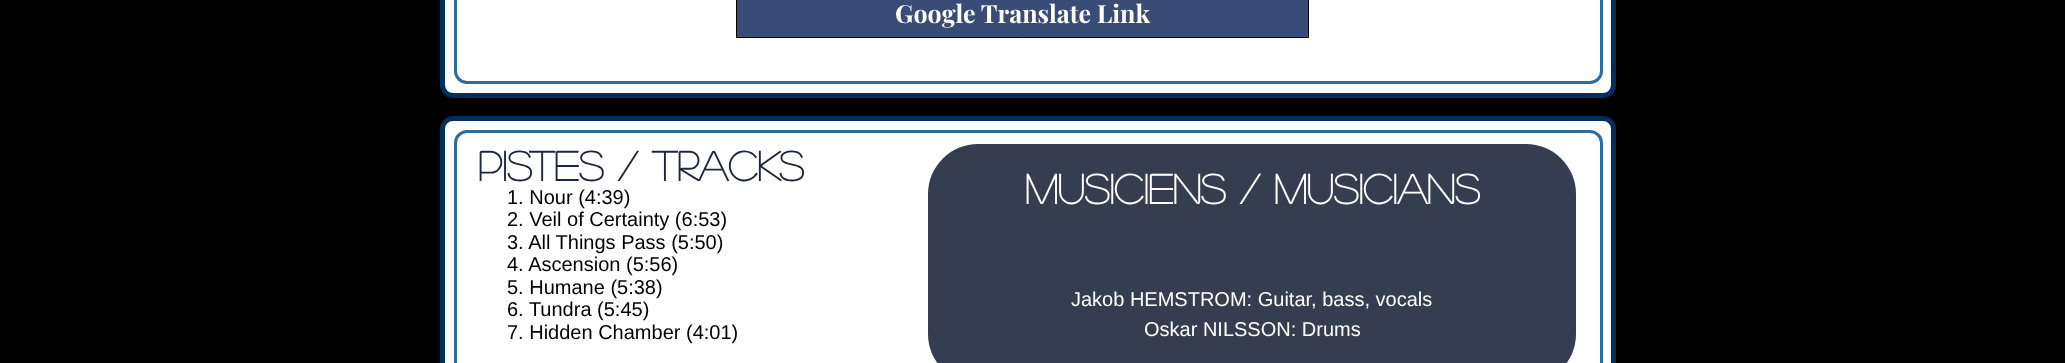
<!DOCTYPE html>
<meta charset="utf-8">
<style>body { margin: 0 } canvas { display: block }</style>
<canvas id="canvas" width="2065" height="363"></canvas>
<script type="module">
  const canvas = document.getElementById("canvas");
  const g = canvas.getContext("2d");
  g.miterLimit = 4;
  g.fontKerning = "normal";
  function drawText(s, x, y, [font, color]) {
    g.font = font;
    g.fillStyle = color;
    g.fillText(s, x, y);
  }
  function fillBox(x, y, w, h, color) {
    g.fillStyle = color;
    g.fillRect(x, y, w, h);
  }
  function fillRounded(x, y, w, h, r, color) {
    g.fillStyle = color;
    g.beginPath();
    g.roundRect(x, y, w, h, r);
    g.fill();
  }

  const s1 = ["bold 25px Playfair Display", "#FFFFFF"];
  const s2 = ["bold 41.25px 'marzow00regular'", "#1C263A"];
  const s3 = ["20px Liberation Sans", "#000000"];
  const s4 = ["bold 41.25px 'marzow00regular'", "#FFFFFF"];
  const s5 = ["20px Liberation Sans", "#FFFFFF"];

  fillBox(0, 0, 2065, 363, "#000000");
  g.fillStyle = "#FFFFFF";
  g.beginPath();
  g.roundRect(442.5, -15.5, 1171, 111, 10.5);
  g.fill();
  g.strokeStyle = "#002E5D";
  g.lineWidth = 5;
  g.stroke();
  g.beginPath();
  g.roundRect(455.5, -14.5, 1146, 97, 11.5);
  g.strokeStyle = "#2B6CA3";
  g.lineWidth = 3;
  g.stroke();
  g.fillStyle = "#394C75";
  g.beginPath();
  g.rect(736.5, -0.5, 572, 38);
  g.fill();
  g.strokeStyle = "#000000";
  g.lineWidth = 1;
  g.stroke();
  drawText("Google Translate Link", 895, 23, s1);
  g.beginPath();
  g.roundRect(442.5, 118.5, 1171, 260, 10.5);
  g.fill();
  g.strokeStyle = "#002E5D";
  g.lineWidth = 5;
  g.stroke();
  g.beginPath();
  g.roundRect(455.5, 131.5, 1146, 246, 11.5);
  g.strokeStyle = "#2B6CA3";
  g.lineWidth = 3;
  g.stroke();
  drawText("PISTES / TRACKS", 478, 181, s2);
  drawText("1. Nour (4:39)", 507, 204, s3);
  drawText("2. Veil of Certainty (6:53)", 507, 226, s3);
  drawText("3. All Things Pass (5:50)", 507, 249, s3);
  drawText("4. Ascension (5:56)", 507, 271, s3);
  drawText("5. Humane (5:38)", 507, 294, s3);
  drawText("6. Tundra (5:45)", 507, 316, s3);
  drawText("7. Hidden Chamber (4:01)", 507, 339, s3);
  fillRounded(928, 144, 648, 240, 50, "#353E50");
  drawText("musiciens / musicians", 1025, 204, s4);
  drawText("Jakob HEMSTROM: Guitar, bass, vocals", 1071, 306, s5);
  drawText("Oskar NILSSON: Drums", 1144, 336, s5);
</script>
